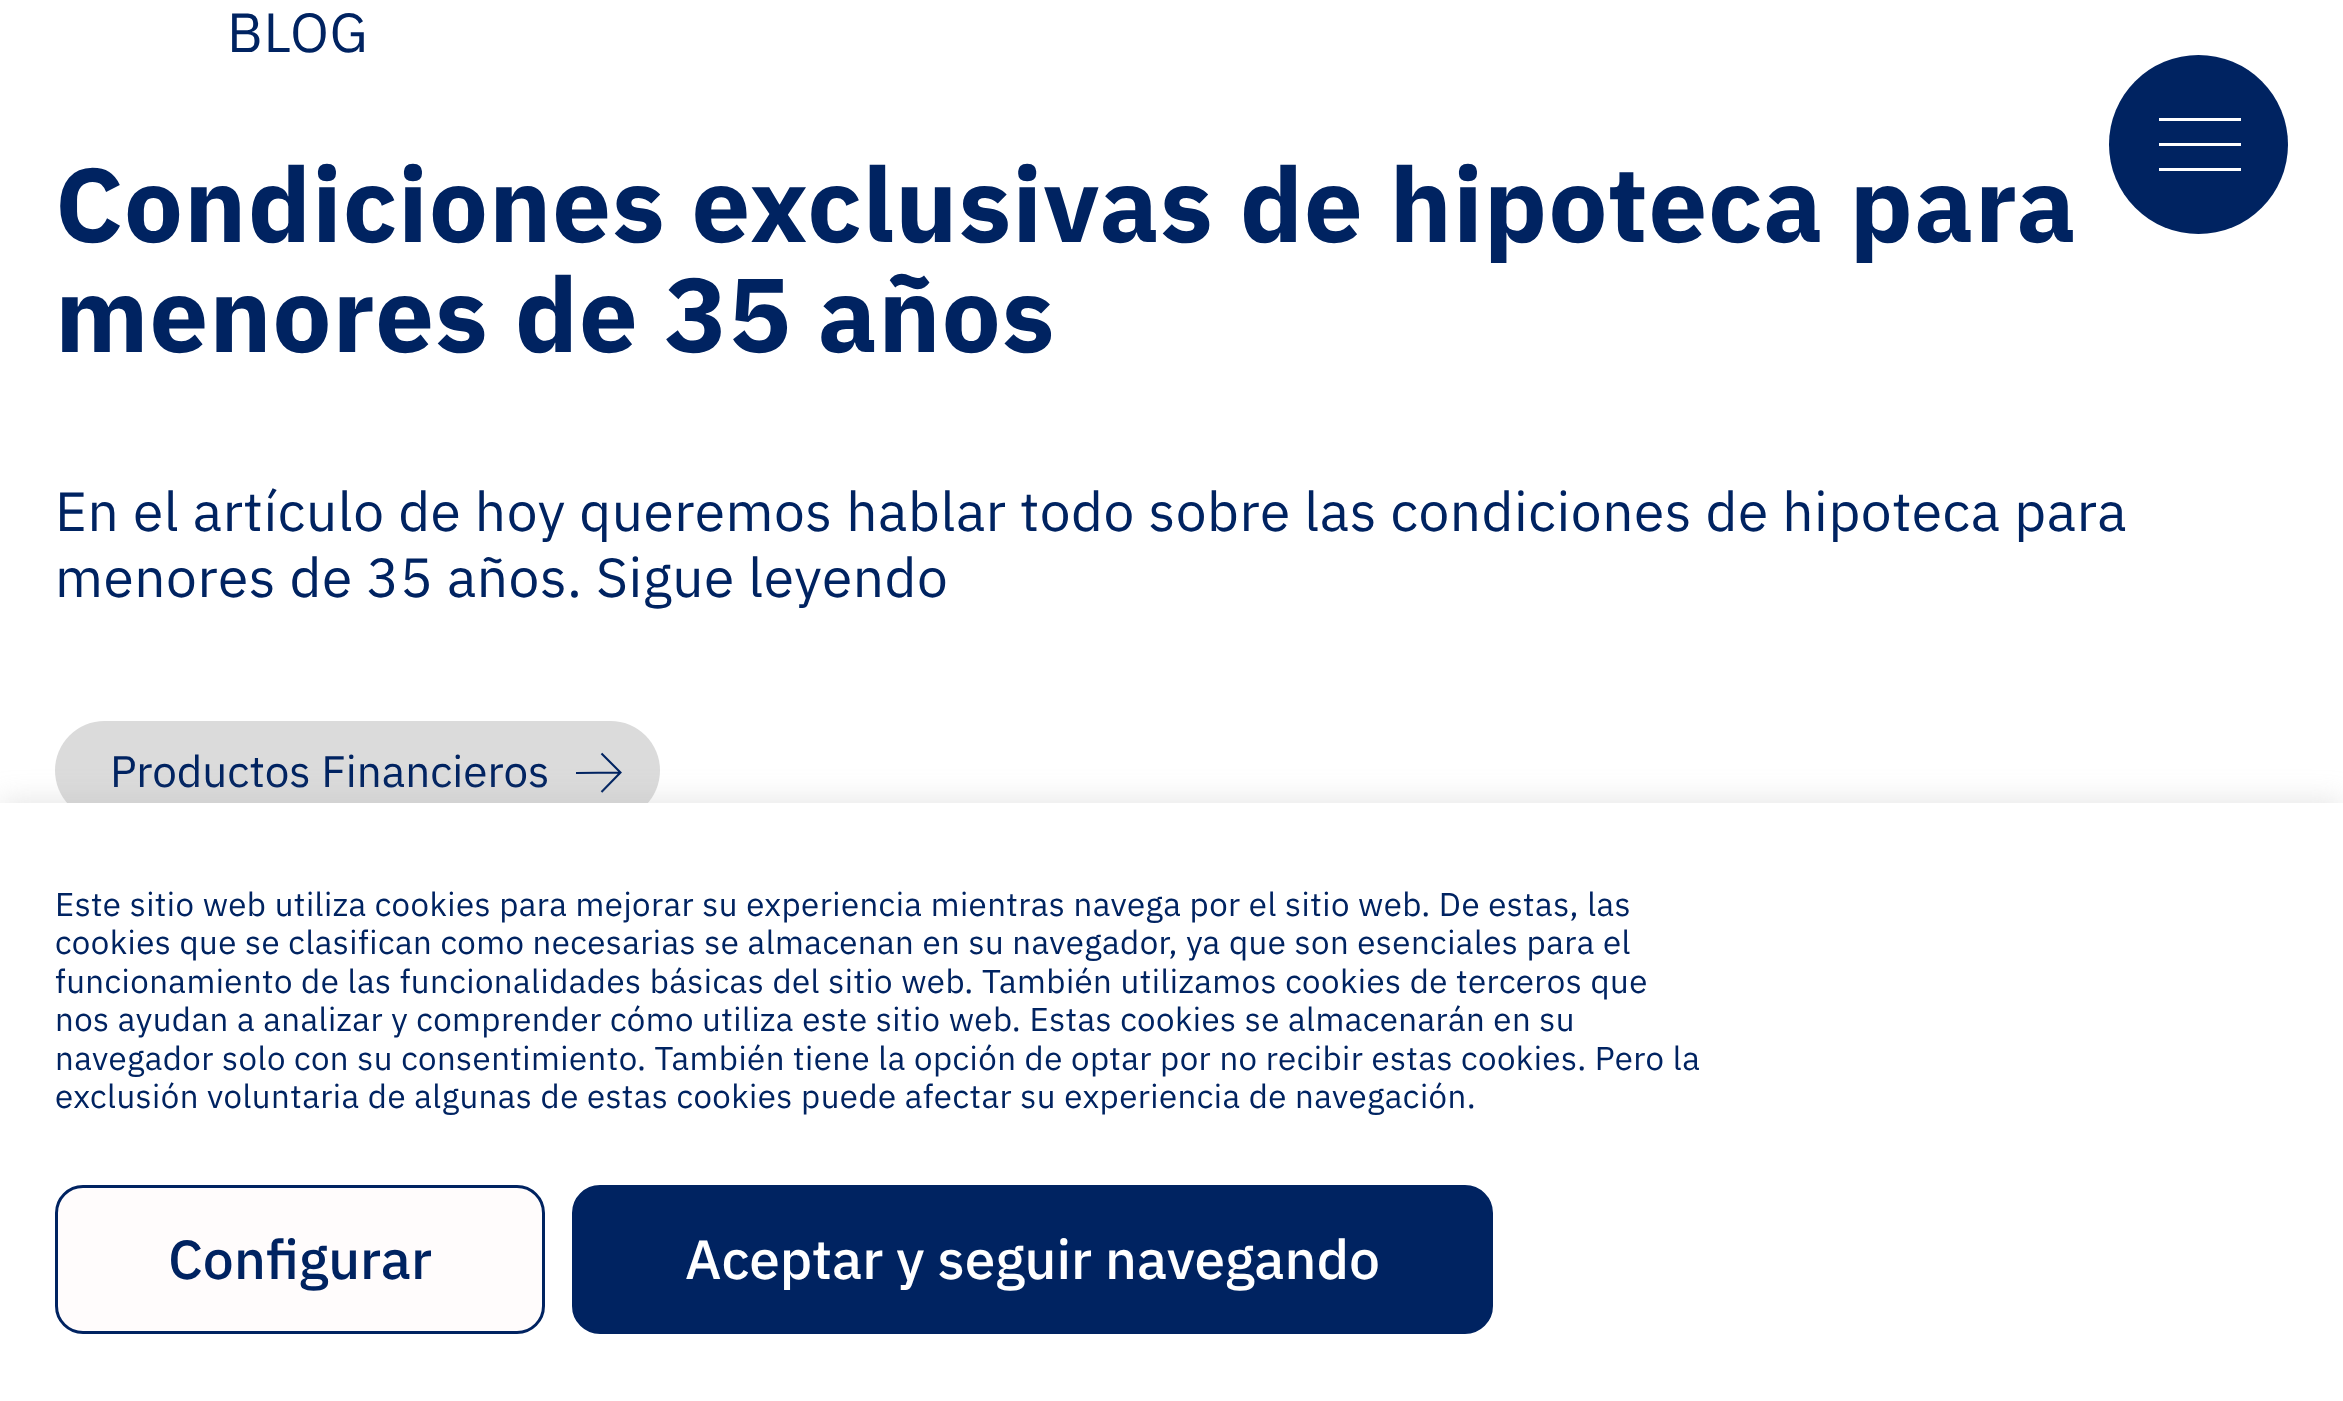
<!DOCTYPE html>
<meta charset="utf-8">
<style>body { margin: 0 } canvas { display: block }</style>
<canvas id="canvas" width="2343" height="1401"></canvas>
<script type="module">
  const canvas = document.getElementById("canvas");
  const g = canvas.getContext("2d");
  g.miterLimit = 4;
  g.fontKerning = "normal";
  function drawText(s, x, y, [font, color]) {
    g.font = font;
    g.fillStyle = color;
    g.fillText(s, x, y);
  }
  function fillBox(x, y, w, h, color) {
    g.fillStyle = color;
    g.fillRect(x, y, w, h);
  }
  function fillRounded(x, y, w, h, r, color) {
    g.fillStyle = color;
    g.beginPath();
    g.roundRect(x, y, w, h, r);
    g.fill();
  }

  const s1 = ["55px IBM Plex Sans", "#002361"];
  const s2 = ["bold 104.5px IBM Plex Sans", "#002361"];
  const s3 = ["44px IBM Plex Sans", "#002361"];
  const s4 = ["33px IBM Plex Sans", "#002361"];
  const s5 = ["500 55px IBM Plex Sans", "#002361"];
  const s6 = ["500 55px IBM Plex Sans", "#FFFFFF"];

  fillBox(0, 0, 2343, 1401, "#FFFFFF");
  g.letterSpacing = "0.55px";
  drawText("BLOG", 227, 52, s1);
  g.letterSpacing = "1.05px";
  drawText("Condiciones exclusivas de hipoteca para", 55, 242, s2);
  drawText("menores de 35 años", 55, 352, s2);
  g.letterSpacing = "0.55px";
  drawText("En el artículo de hoy queremos hablar todo sobre las condiciones de hipoteca para", 55, 531, s1);
  drawText("menores de 35 años. Sigue leyendo", 55, 597, s1);
  fillRounded(55, 721, 605, 99, 49.5, "#DBDBDB");
  g.letterSpacing = "0px";
  drawText("Productos Financieros", 110, 787, s3);
  g.beginPath();
  g.moveTo(601.5, 753.5);
  g.lineTo(620.5, 772.5);
  g.lineTo(601.5, 792);
  g.moveTo(576, 773);
  g.lineTo(620.5, 772.5);
  g.strokeStyle = "#002361";
  g.lineWidth = 2.1;
  g.stroke();
  g.beginPath();
  g.arc(2198.5, 144.5, 89.5, 0, Math.PI * 2);
  g.fill();
  fillBox(2159, 118, 82, 3, "#FFFFFF");
  fillBox(2159, 143, 82, 3, "#FFFFFF");
  fillBox(2159, 168, 82, 3, "#FFFFFF");
  g.fillStyle = "rgba(172, 171, 171, 0.3)";
  g.filter = "blur(14px)";
  g.beginPath();
  g.rect(0, 800, 2343, 600);
  g.fill();
  g.filter = "none";
  fillBox(0, 803, 2343, 598, "#FFFFFF");
  g.letterSpacing = "0.44px";
  drawText("Este sitio web utiliza cookies para mejorar su experiencia mientras navega por el sitio web. De estas, las", 55, 916, s4);
  drawText("cookies que se clasifican como necesarias se almacenan en su navegador, ya que son esenciales para el", 55, 954, s4);
  drawText("funcionamiento de las funcionalidades básicas del sitio web. También utilizamos cookies de terceros que", 55, 993, s4);
  drawText("nos ayudan a analizar y comprender cómo utiliza este sitio web. Estas cookies se almacenarán en su", 55, 1031, s4);
  drawText("navegador solo con su consentimiento. También tiene la opción de optar por no recibir estas cookies. Pero la", 55, 1070, s4);
  drawText("exclusión voluntaria de algunas de estas cookies puede afectar su experiencia de navegación.", 55, 1108, s4);
  g.fillStyle = "#FFFCFC";
  g.beginPath();
  g.roundRect(56.5, 1186.5, 487, 146, 26.5);
  g.fill();
  g.lineWidth = 3;
  g.stroke();
  g.letterSpacing = "0px";
  drawText("Configurar", 168, 1279, s5);
  g.beginPath();
  g.roundRect(573.5, 1186.5, 918, 146, 26.5);
  g.fill();
  g.stroke();
  drawText("Aceptar y seguir navegando", 685, 1279, s6);
</script>
